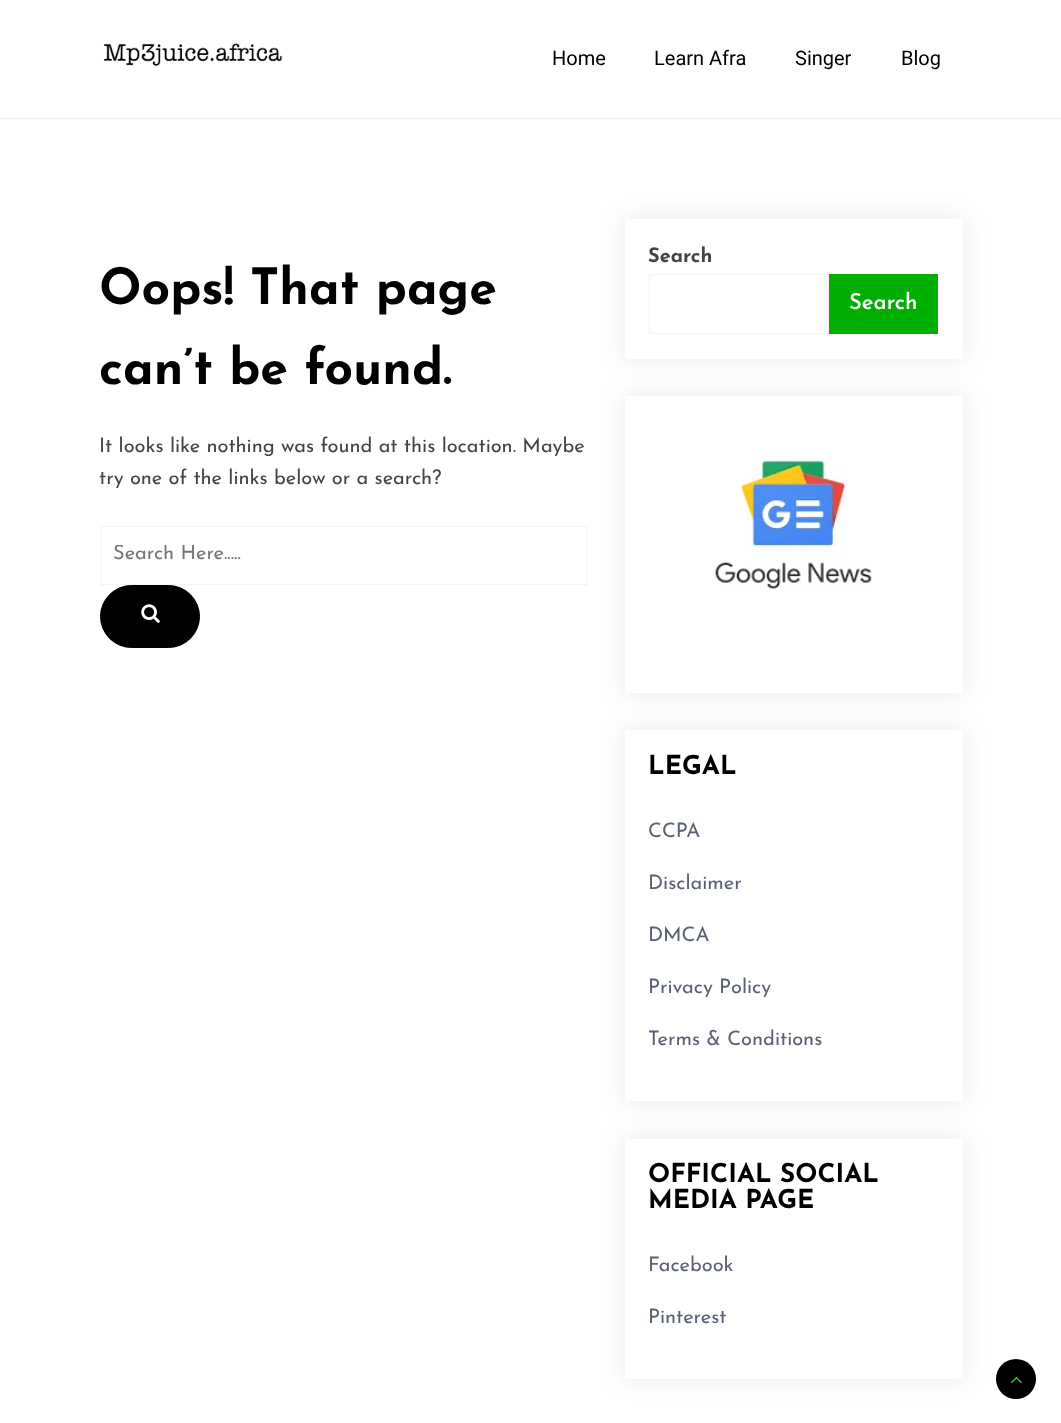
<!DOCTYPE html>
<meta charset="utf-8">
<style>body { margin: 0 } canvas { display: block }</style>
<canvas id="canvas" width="1061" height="1423"></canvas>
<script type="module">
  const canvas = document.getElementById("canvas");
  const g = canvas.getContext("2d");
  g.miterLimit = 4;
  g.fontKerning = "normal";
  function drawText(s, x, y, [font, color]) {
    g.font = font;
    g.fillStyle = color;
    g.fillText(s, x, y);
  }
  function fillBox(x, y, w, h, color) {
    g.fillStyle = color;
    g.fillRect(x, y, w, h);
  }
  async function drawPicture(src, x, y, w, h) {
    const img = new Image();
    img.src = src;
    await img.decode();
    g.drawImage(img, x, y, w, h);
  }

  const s1 = ["20px Roboto", "#000000"];
  const s2 = ["bold 50px Josefin Sans", "#000000"];
  const s3 = ["20px Josefin Sans", "#444444"];
  const s4 = ["20px Josefin Sans", "#757575"];
  const s5 = ["bold 20px Josefin Sans", "#444444"];
  const s6 = ["600 22px Josefin Sans", "#FFFFFF"];
  const s7 = ["bold 26px Josefin Sans", "#000000"];
  const s8 = ["20px Josefin Sans", "#596172"];

  fillBox(0, 0, 1061, 1423, "#FFFFFF");
  fillBox(0, 118, 1061, 1, "#EEEEEE");
  await drawPicture("pic1.png", 103, 43, 180, 23);
  drawText("Home", 552, 65, s1);
  drawText("Learn Afra", 654, 65, s1);
  drawText("Singer", 795, 65, s1);
  drawText("Blog", 901, 65, s1);
  drawText("Oops! That page", 99, 304, s2);
  drawText("can’t be found.", 99, 384, s2);
  drawText("It looks like nothing was found at this location. Maybe", 99, 452, s3);
  drawText("try one of the links below or a search?", 99, 484, s3);
  g.strokeStyle = "#F3F3F8";
  g.strokeRect(100.5, 526.5, 487, 58);
  g.save();
  g.beginPath();
  g.rect(114, 545, 460, 20);
  g.clip();
  drawText("Search Here.....", 113, 559, s4);
  g.restore();
  g.fillStyle = "#000000";
  g.beginPath();
  g.roundRect(100.5, 585.5, 99, 62, 31);
  g.fill();
  g.strokeStyle = "#000000";
  g.stroke();
  await drawPicture("pic2.png", 141, 604, 19, 19);
  g.fillStyle = "rgba(0, 0, 0, 0.09)";
  g.filter = "blur(12.5px)";
  g.beginPath();
  g.rect(625, 219, 338, 140);
  g.fill();
  g.filter = "none";
  fillBox(625, 219, 338, 140, "#FFFFFF");
  drawText("Search", 648, 262, s5);
  g.strokeStyle = "#F3F3F8";
  g.strokeRect(649.5, 274.5, 179, 59);
  fillBox(829, 274, 109, 60, "#00AF00");
  drawText("Search", 849, 309, s6);
  g.fillStyle = "rgba(0, 0, 0, 0.09)";
  g.filter = "blur(12.5px)";
  g.beginPath();
  g.rect(625, 396, 338, 297);
  g.fill();
  g.filter = "none";
  fillBox(625, 396, 338, 297, "#FFFFFF");
  await drawPicture("pic3.png", 715, 459, 157, 131);
  g.fillStyle = "rgba(0, 0, 0, 0.09)";
  g.filter = "blur(12.5px)";
  g.beginPath();
  g.rect(625, 730, 338, 371);
  g.fill();
  g.filter = "none";
  fillBox(625, 730, 338, 371, "#FFFFFF");
  drawText("LEGAL", 648, 774, s7);
  drawText("CCPA", 648, 837, s8);
  drawText("Disclaimer", 648, 889, s8);
  drawText("DMCA", 648, 941, s8);
  drawText("Privacy Policy", 648, 993, s8);
  drawText("Terms & Conditions", 648, 1045, s8);
  g.fillStyle = "rgba(0, 0, 0, 0.09)";
  g.filter = "blur(12.5px)";
  g.beginPath();
  g.rect(625, 1139, 338, 240);
  g.fill();
  g.filter = "none";
  fillBox(625, 1139, 338, 240, "#FFFFFF");
  drawText("OFFICIAL SOCIAL", 648, 1182, s7);
  drawText("MEDIA PAGE", 648, 1208, s7);
  drawText("Facebook", 648, 1271, s8);
  drawText("Pinterest", 648, 1323, s8);
  g.fillStyle = "#000000";
  g.beginPath();
  g.arc(1016, 1379, 20, 0, Math.PI * 2);
  g.fill();
  await drawPicture("pic4.png", 1010, 1376, 12, 8);
</script>
